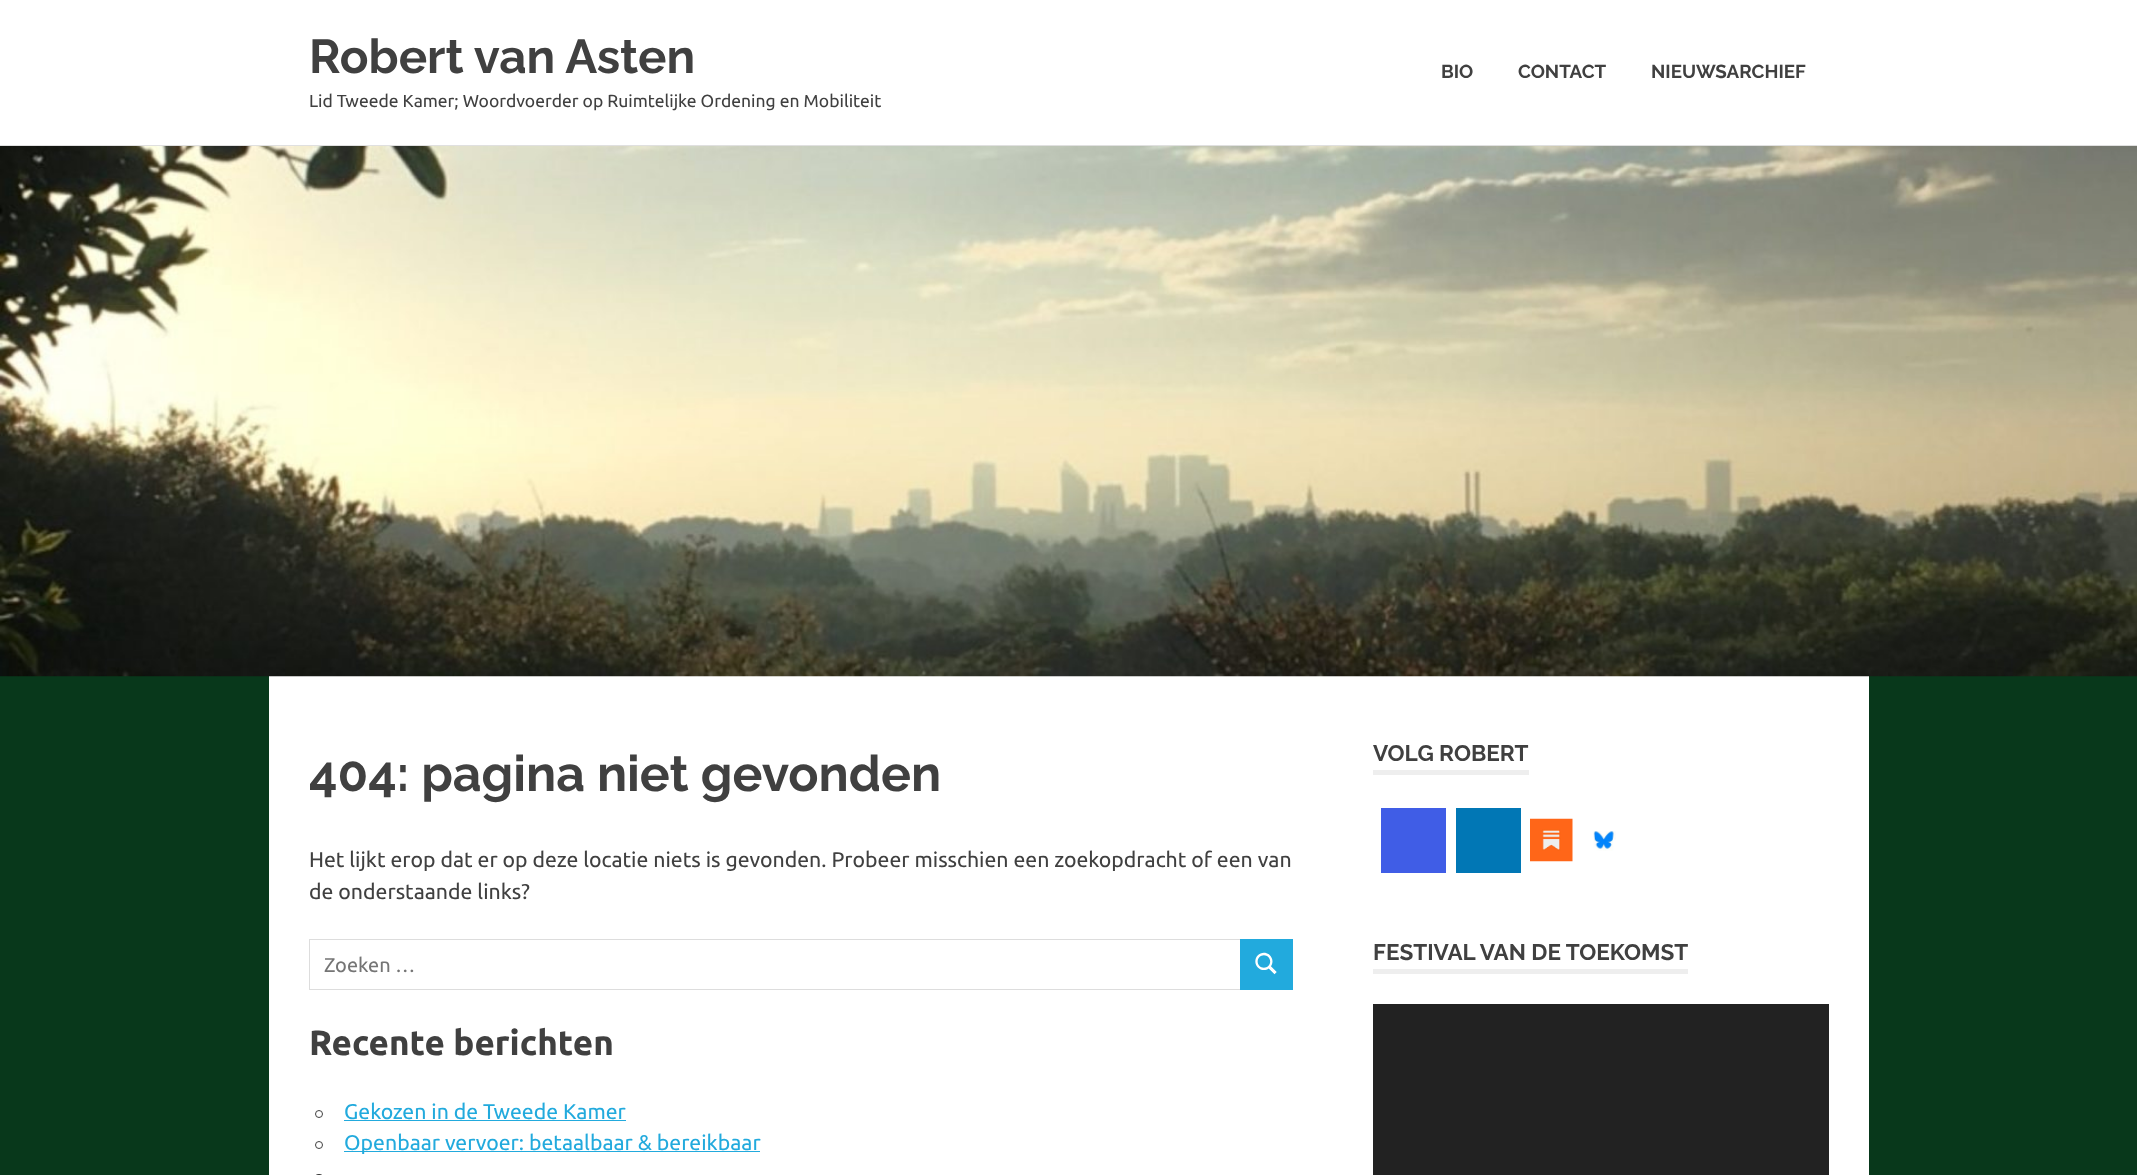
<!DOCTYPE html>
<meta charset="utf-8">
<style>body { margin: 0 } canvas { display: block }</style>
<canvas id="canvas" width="2137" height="1175"></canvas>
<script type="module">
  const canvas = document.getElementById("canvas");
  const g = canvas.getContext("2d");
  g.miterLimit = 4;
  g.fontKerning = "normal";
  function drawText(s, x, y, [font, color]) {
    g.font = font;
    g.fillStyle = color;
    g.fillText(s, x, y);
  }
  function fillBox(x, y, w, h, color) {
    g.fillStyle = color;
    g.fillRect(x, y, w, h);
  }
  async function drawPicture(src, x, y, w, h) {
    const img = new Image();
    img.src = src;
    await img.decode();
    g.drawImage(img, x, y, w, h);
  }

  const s1 = ["bold 47.5px Raleway", "#404040"];
  const s2 = ["17.5px Ubuntu", "#404040"];
  const s3 = ["bold 18.75px Raleway", "#404040"];
  const s4 = ["bold 50px Raleway", "#404040"];
  const s5 = ["21.25px Ubuntu", "#404040"];
  const s6 = ["20px Ubuntu", "#757575"];
  const s7 = ["bold 35px Ubuntu", "#404040"];
  const s8 = ["21.25px Ubuntu", "#22AADD"];
  const s9 = ["bold 22.5px Raleway", "#404040"];

  fillBox(0, 0, 2137, 1175, "#08381B");
  fillBox(0, 0, 2137, 145, "#FFFFFF");
  fillBox(0, 145, 2137, 1, "#E0E0E0");
  drawText("Robert van Asten", 309, 73, s1);
  drawText("Lid Tweede Kamer; Woordvoerder op Ruimtelijke Ordening en Mobiliteit", 309, 107, s2);
  drawText("BIO", 1441, 78, s3);
  drawText("CONTACT", 1518, 78, s3);
  drawText("NIEUWSARCHIEF", 1651, 78, s3);
  fillBox(269, 676, 1600, 499, "#FFFFFF");
  await drawPicture("pic1.png", 0, 146, 2137, 531);
  drawText("404: pagina niet gevonden", 309, 791, s4);
  drawText("Het lijkt erop dat er op deze locatie niets is gevonden. Probeer misschien een zoekopdracht of een van", 309, 867, s5);
  drawText("de onderstaande links?", 309, 899, s5);
  g.strokeStyle = "#DDDDDD";
  g.strokeRect(309.5, 939.5, 931, 50);
  drawText("Zoeken …", 324, 972, s6);
  fillBox(1240, 939, 53, 51, "#22AADD");
  await drawPicture("pic2.png", 1255, 952, 22, 23);
  drawText("Recente berichten", 309, 1055, s7);
  g.beginPath();
  g.arc(319, 1114, 3.5, 0, Math.PI * 2);
  g.strokeStyle = "#404040";
  g.stroke();
  drawText("Gekozen in de Tweede Kamer", 344, 1119, s8);
  fillBox(344, 1120, 282, 1, "#22AADD");
  g.beginPath();
  g.arc(319, 1145, 3.5, 0, Math.PI * 2);
  g.stroke();
  fillBox(344, 1151, 416, 1, "#22AADD");
  drawText("Openbaar vervoer: betaalbaar & bereikbaar", 344, 1150, s8);
  g.beginPath();
  g.roundRect(315.5, 1174.5, 7, 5, 3);
  g.stroke();
  fillBox(1373, 770, 156, 5, "#EEEEEE");
  drawText("VOLG ROBERT", 1373, 761, s9);
  fillBox(1381, 808, 65, 65, "#405DE6");
  fillBox(1456, 808, 65, 65, "#0177B5");
  await drawPicture("pic3.png", 1530, 818, 43, 44);
  await drawPicture("pic4.png", 1593, 831, 23, 20);
  fillBox(1373, 969, 315, 5, "#EEEEEE");
  drawText("FESTIVAL VAN DE TOEKOMST", 1373, 960, s9);
  fillBox(1373, 1004, 456, 171, "#222222");
</script>
